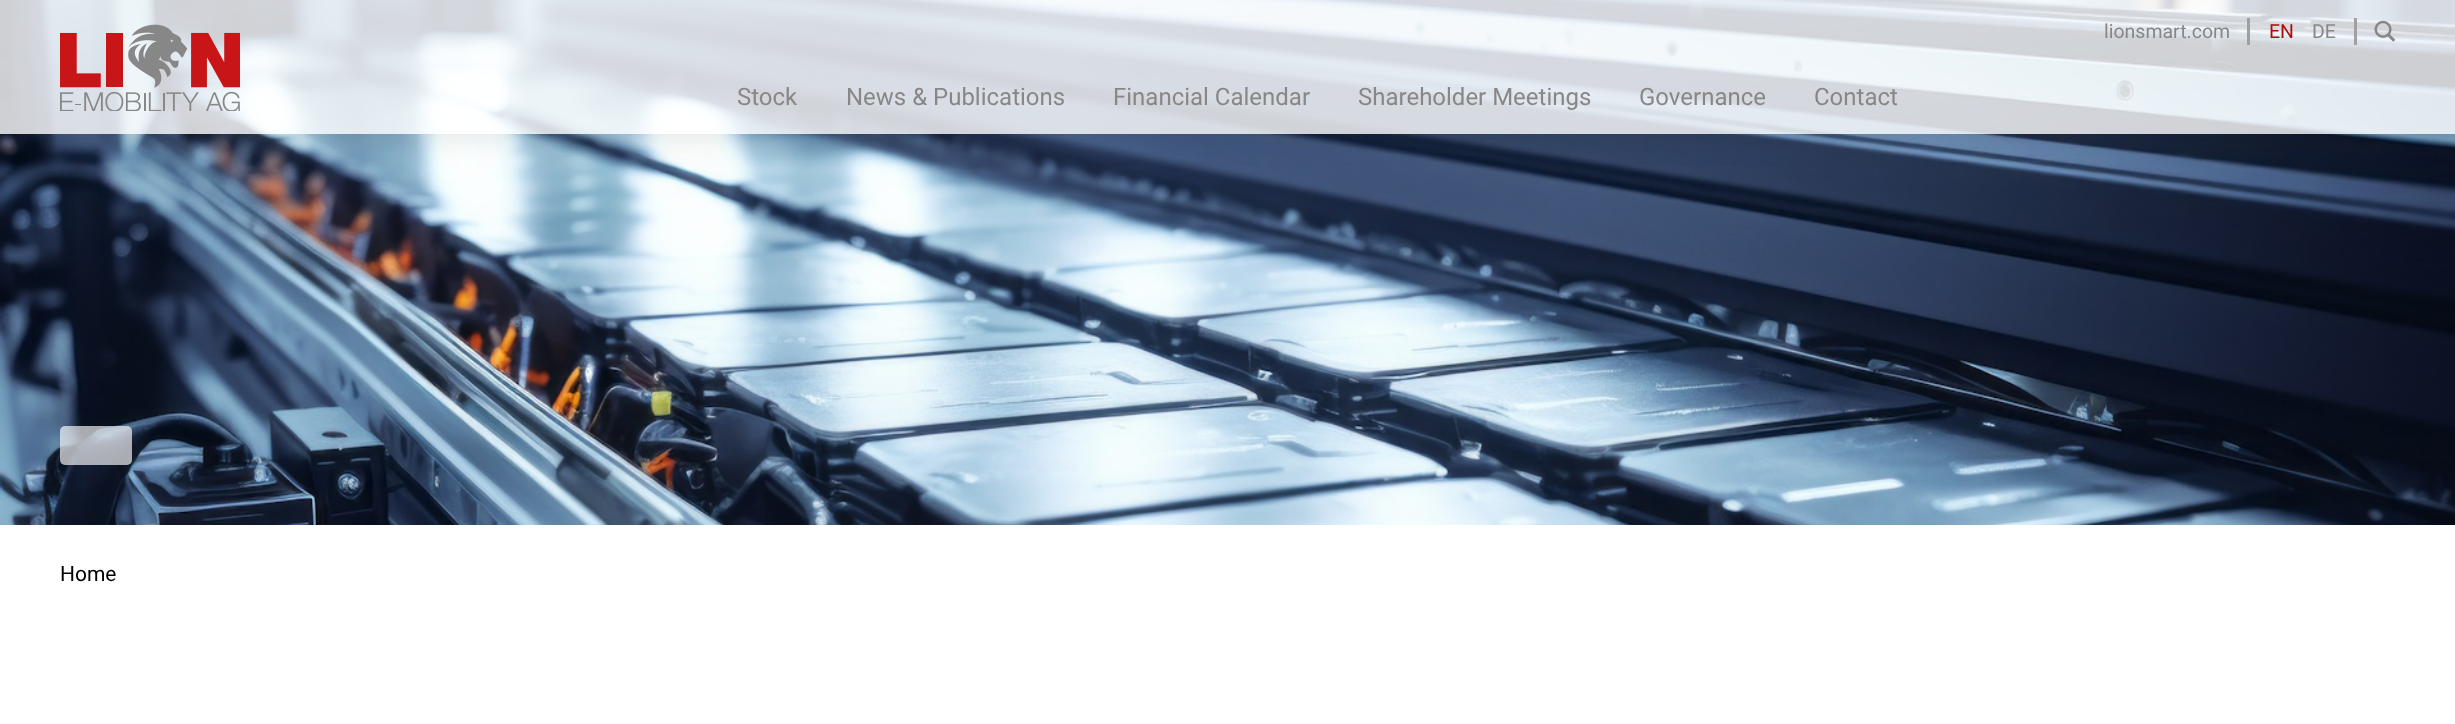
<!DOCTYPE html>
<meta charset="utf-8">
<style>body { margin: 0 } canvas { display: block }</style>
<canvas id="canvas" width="2455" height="724"></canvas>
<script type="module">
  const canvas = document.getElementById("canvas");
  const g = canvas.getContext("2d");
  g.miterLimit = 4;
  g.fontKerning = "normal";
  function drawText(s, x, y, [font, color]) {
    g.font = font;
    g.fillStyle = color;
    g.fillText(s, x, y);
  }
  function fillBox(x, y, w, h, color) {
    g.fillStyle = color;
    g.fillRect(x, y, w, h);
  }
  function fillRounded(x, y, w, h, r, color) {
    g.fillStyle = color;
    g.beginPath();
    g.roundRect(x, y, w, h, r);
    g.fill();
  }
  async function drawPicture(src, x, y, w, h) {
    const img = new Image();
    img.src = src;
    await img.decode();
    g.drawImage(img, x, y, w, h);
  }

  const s1 = ["24px Roboto", "#878787"];
  const s2 = ["19.5px Roboto", "#878787"];
  const s3 = ["19.5px Roboto", "#B00909"];
  const s4 = ["21px Roboto", "#000000"];

  fillBox(0, 0, 2455, 724, "#FFFFFF");
  await drawPicture("pic3.png", 0, 0, 2455, 525);
  g.save();
  g.beginPath();
  g.moveTo(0, 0);
  g.lineTo(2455, 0);
  g.lineTo(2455, 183);
  g.lineTo(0, 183);
  g.closePath();
  g.moveTo(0, 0);
  g.lineTo(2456, 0);
  g.lineTo(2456, 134);
  g.lineTo(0, 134);
  g.closePath();
  g.clip("evenodd");
  g.fillStyle = "rgba(0, 0, 0, 0.1)";
  g.filter = "blur(15px)";
  g.beginPath();
  g.rect(0, 3, 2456, 134);
  g.fill();
  g.filter = "none";
  g.restore();
  fillBox(0, 0, 2455, 134, "rgba(255, 255, 255, 0.8)");
  await drawPicture("pic1.png", 60, 24, 180, 87);
  drawText("Stock", 737, 105, s1);
  drawText("News & Publications", 846, 105, s1);
  drawText("Financial Calendar", 1113, 105, s1);
  drawText("Shareholder Meetings", 1358, 105, s1);
  drawText("Governance", 1639, 105, s1);
  drawText("Contact", 1814, 105, s1);
  fillBox(2247, 18, 3, 27, "#A0A0A0");
  drawText("lionsmart.com", 2104, 38, s2);
  drawText("EN", 2269, 38, s3);
  fillBox(2354, 18, 3, 27, "#A0A0A0");
  drawText("DE", 2312, 38, s2);
  await drawPicture("pic2.png", 2374, 20, 22, 22);
  fillRounded(60, 426, 72, 39, 5, "rgba(255, 255, 255, 0.65)");
  drawText("Home", 60, 581, s4);
</script>
